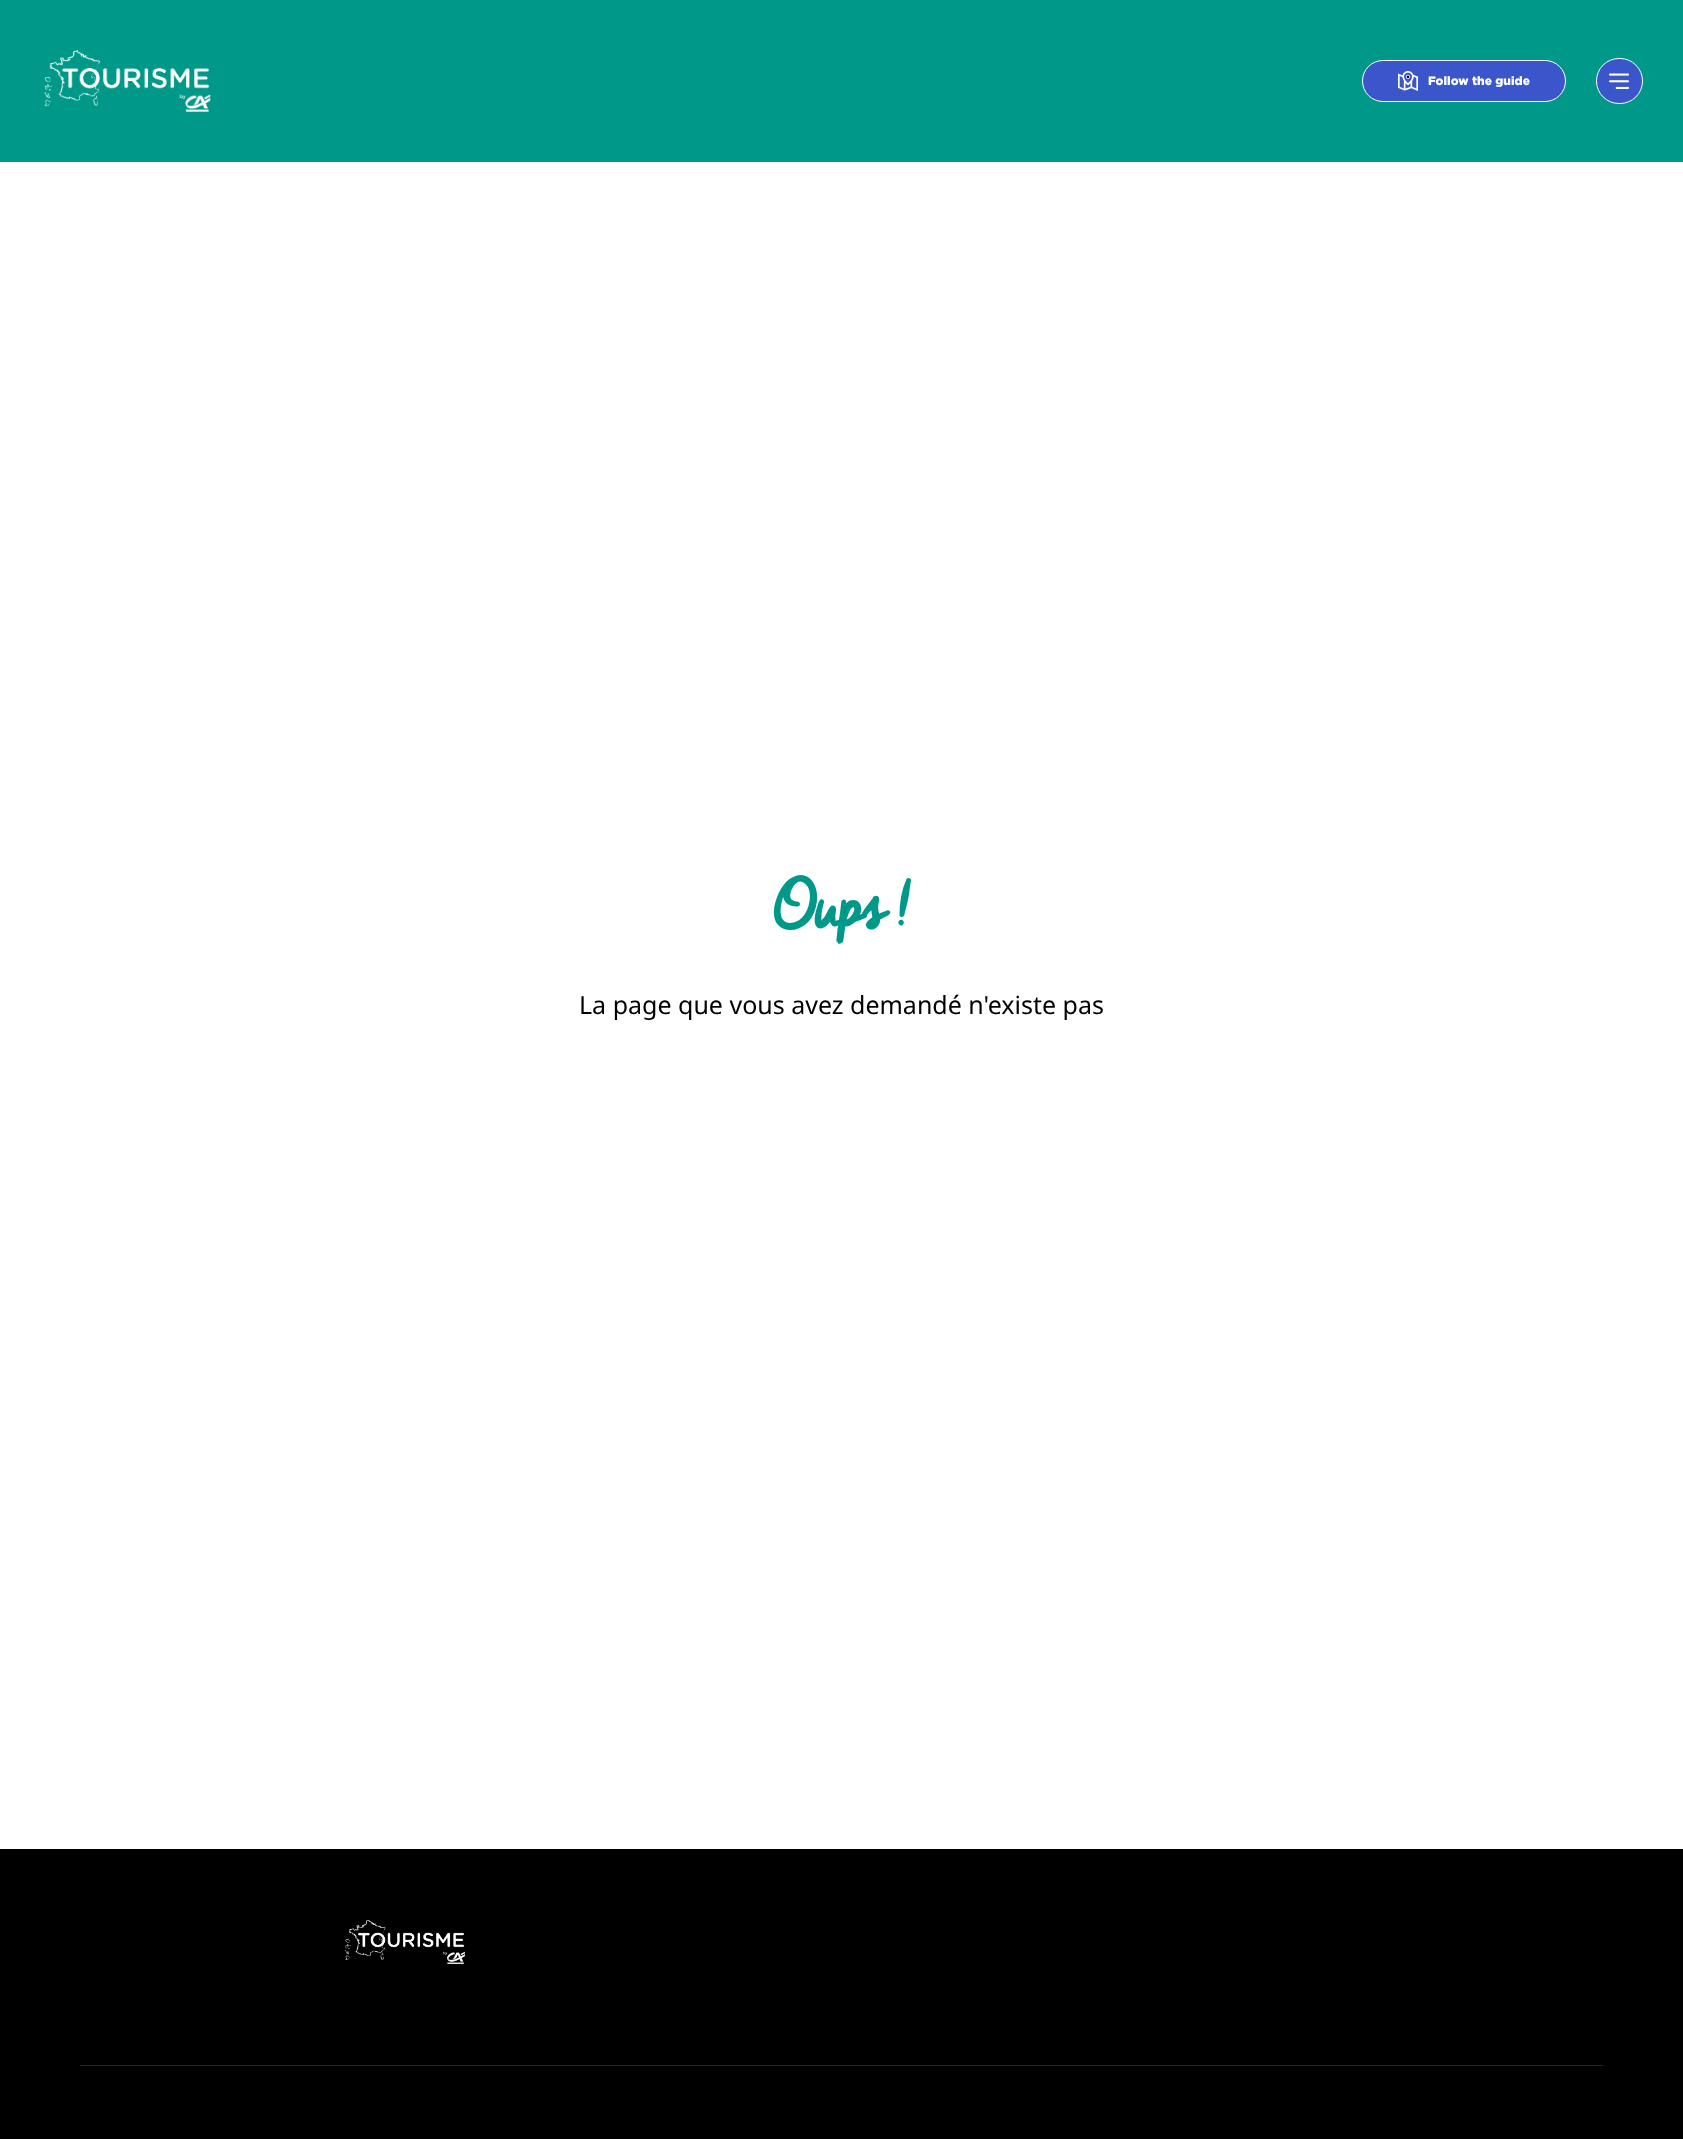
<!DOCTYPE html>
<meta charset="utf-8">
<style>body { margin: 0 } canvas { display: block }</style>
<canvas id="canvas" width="1683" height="2139"></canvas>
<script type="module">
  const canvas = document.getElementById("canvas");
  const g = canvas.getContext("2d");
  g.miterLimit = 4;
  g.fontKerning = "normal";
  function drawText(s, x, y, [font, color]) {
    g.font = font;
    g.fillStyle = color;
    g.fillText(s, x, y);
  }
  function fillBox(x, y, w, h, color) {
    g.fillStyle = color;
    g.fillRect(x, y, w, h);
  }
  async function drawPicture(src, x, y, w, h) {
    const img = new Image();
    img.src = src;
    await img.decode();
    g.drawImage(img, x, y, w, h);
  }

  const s1 = ["900 12px Gotham", "#FFFFFF"];
  const s2 = ["bold 80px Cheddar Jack", "#009989"];
  const s3 = ["25px Noto Sans", "#000000"];

  fillBox(0, 0, 1683, 2139, "#FFFFFF");
  fillBox(0, 0, 1683, 162, "#009989");
  await drawPicture("pic1.png", 44, 49, 167, 63);
  g.fillStyle = "#3B56CA";
  g.beginPath();
  g.roundRect(1362.5, 60.5, 203, 41, 20.5);
  g.fill();
  g.strokeStyle = "#FFFFFF";
  g.stroke();
  await drawPicture("pic2.png", 1398, 71, 20, 20);
  drawText("Follow the guide", 1428, 85, s1);
  g.fillStyle = "#3B56CA";
  g.beginPath();
  g.roundRect(1596.5, 58.5, 46, 45, 22.5);
  g.fill();
  g.stroke();
  await drawPicture("pic3.png", 1609, 73, 20, 16);
  drawText("Oups !", 774, 926, s2);
  drawText("La page que vous avez demandé n'existe pas", 579, 1014, s3);
  fillBox(0, 1849, 1683, 290, "#000000");
  await drawPicture("pic4.png", 345, 1920, 120, 44);
  fillBox(80, 2065, 1523, 1, "#262626");
</script>
